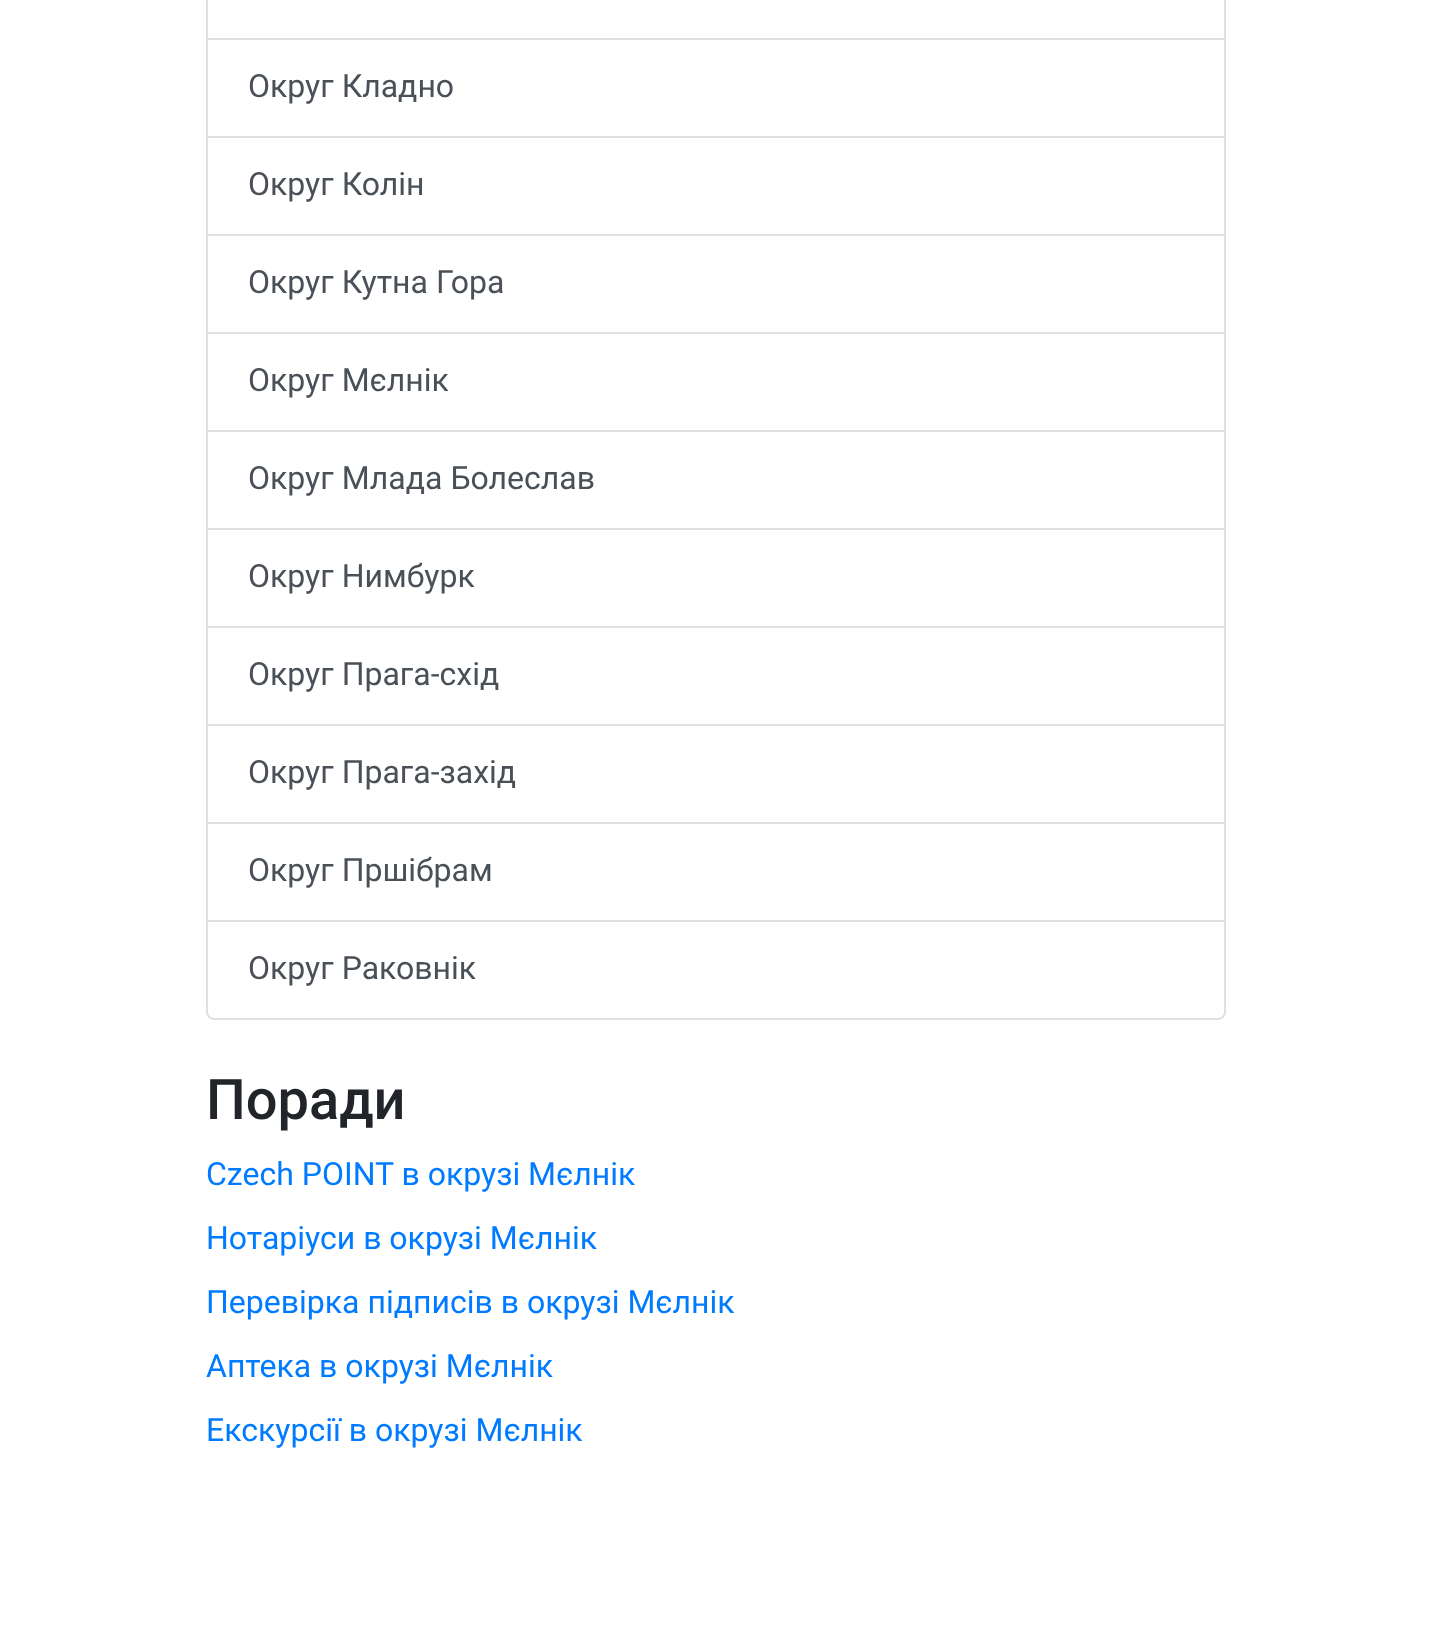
<!DOCTYPE html>
<meta charset="utf-8">
<style>body { margin: 0 } canvas { display: block }</style>
<canvas id="canvas" width="1432" height="1631"></canvas>
<script type="module">
  const canvas = document.getElementById("canvas");
  const g = canvas.getContext("2d");
  g.miterLimit = 4;
  g.fontKerning = "normal";
  function drawText(s, x, y, [font, color]) {
    g.font = font;
    g.fillStyle = color;
    g.fillText(s, x, y);
  }
  function fillBox(x, y, w, h, color) {
    g.fillStyle = color;
    g.fillRect(x, y, w, h);
  }

  const s1 = ["32px Roboto", "#495057"];
  const s2 = ["500 56px Roboto", "#212529"];
  const s3 = ["32px Roboto", "#007BFF"];

  fillBox(0, 0, 1432, 1631, "#FFFFFF");
  g.fillStyle = "#DFDFDF";
  g.beginPath();
  g.moveTo(1226, -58);
  g.lineTo(1226, 40);
  g.lineTo(1224, 38);
  g.lineTo(1224, -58);
  g.closePath();
  g.fill();
  g.fillStyle = "rgba(0, 0, 0, 0.12)";
  g.beginPath();
  g.moveTo(1226, 40);
  g.lineTo(206, 40);
  g.lineTo(208, 38);
  g.lineTo(1224, 38);
  g.closePath();
  g.fill();
  g.beginPath();
  g.moveTo(206, 40);
  g.lineTo(206, -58);
  g.lineTo(208, -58);
  g.lineTo(208, 38);
  g.closePath();
  g.fill();
  g.fillStyle = "#DFDFDF";
  g.beginPath();
  g.moveTo(1226, 40);
  g.lineTo(1226, 138);
  g.lineTo(1224, 136);
  g.lineTo(1224, 40);
  g.closePath();
  g.fill();
  g.fillStyle = "rgba(0, 0, 0, 0.12)";
  g.beginPath();
  g.moveTo(1226, 138);
  g.lineTo(206, 138);
  g.lineTo(208, 136);
  g.lineTo(1224, 136);
  g.closePath();
  g.fill();
  g.beginPath();
  g.moveTo(206, 138);
  g.lineTo(206, 40);
  g.lineTo(208, 40);
  g.lineTo(208, 136);
  g.closePath();
  g.fill();
  drawText("Округ Кладно", 248, 97, s1);
  g.fillStyle = "#DFDFDF";
  g.beginPath();
  g.moveTo(1226, 138);
  g.lineTo(1226, 236);
  g.lineTo(1224, 234);
  g.lineTo(1224, 138);
  g.closePath();
  g.fill();
  g.fillStyle = "rgba(0, 0, 0, 0.12)";
  g.beginPath();
  g.moveTo(1226, 236);
  g.lineTo(206, 236);
  g.lineTo(208, 234);
  g.lineTo(1224, 234);
  g.closePath();
  g.fill();
  g.beginPath();
  g.moveTo(206, 236);
  g.lineTo(206, 138);
  g.lineTo(208, 138);
  g.lineTo(208, 234);
  g.closePath();
  g.fill();
  drawText("Округ Колін", 248, 195, s1);
  g.fillStyle = "#DFDFDF";
  g.beginPath();
  g.moveTo(1226, 236);
  g.lineTo(1226, 334);
  g.lineTo(1224, 332);
  g.lineTo(1224, 236);
  g.closePath();
  g.fill();
  g.fillStyle = "rgba(0, 0, 0, 0.12)";
  g.beginPath();
  g.moveTo(1226, 334);
  g.lineTo(206, 334);
  g.lineTo(208, 332);
  g.lineTo(1224, 332);
  g.closePath();
  g.fill();
  g.beginPath();
  g.moveTo(206, 334);
  g.lineTo(206, 236);
  g.lineTo(208, 236);
  g.lineTo(208, 332);
  g.closePath();
  g.fill();
  drawText("Округ Кутна Гора", 248, 293, s1);
  g.fillStyle = "#DFDFDF";
  g.beginPath();
  g.moveTo(1226, 334);
  g.lineTo(1226, 432);
  g.lineTo(1224, 430);
  g.lineTo(1224, 334);
  g.closePath();
  g.fill();
  g.fillStyle = "rgba(0, 0, 0, 0.12)";
  g.beginPath();
  g.moveTo(1226, 432);
  g.lineTo(206, 432);
  g.lineTo(208, 430);
  g.lineTo(1224, 430);
  g.closePath();
  g.fill();
  g.beginPath();
  g.moveTo(206, 432);
  g.lineTo(206, 334);
  g.lineTo(208, 334);
  g.lineTo(208, 430);
  g.closePath();
  g.fill();
  drawText("Округ Мєлнік", 248, 391, s1);
  g.fillStyle = "#DFDFDF";
  g.beginPath();
  g.moveTo(1226, 432);
  g.lineTo(1226, 530);
  g.lineTo(1224, 528);
  g.lineTo(1224, 432);
  g.closePath();
  g.fill();
  g.fillStyle = "rgba(0, 0, 0, 0.12)";
  g.beginPath();
  g.moveTo(1226, 530);
  g.lineTo(206, 530);
  g.lineTo(208, 528);
  g.lineTo(1224, 528);
  g.closePath();
  g.fill();
  g.beginPath();
  g.moveTo(206, 530);
  g.lineTo(206, 432);
  g.lineTo(208, 432);
  g.lineTo(208, 528);
  g.closePath();
  g.fill();
  drawText("Округ Млада Болеслав", 248, 489, s1);
  g.fillStyle = "#DFDFDF";
  g.beginPath();
  g.moveTo(1226, 530);
  g.lineTo(1226, 628);
  g.lineTo(1224, 626);
  g.lineTo(1224, 530);
  g.closePath();
  g.fill();
  g.fillStyle = "rgba(0, 0, 0, 0.12)";
  g.beginPath();
  g.moveTo(1226, 628);
  g.lineTo(206, 628);
  g.lineTo(208, 626);
  g.lineTo(1224, 626);
  g.closePath();
  g.fill();
  g.beginPath();
  g.moveTo(206, 628);
  g.lineTo(206, 530);
  g.lineTo(208, 530);
  g.lineTo(208, 626);
  g.closePath();
  g.fill();
  drawText("Округ Нимбурк", 248, 587, s1);
  g.fillStyle = "#DFDFDF";
  g.beginPath();
  g.moveTo(1226, 628);
  g.lineTo(1226, 726);
  g.lineTo(1224, 724);
  g.lineTo(1224, 628);
  g.closePath();
  g.fill();
  g.fillStyle = "rgba(0, 0, 0, 0.12)";
  g.beginPath();
  g.moveTo(1226, 726);
  g.lineTo(206, 726);
  g.lineTo(208, 724);
  g.lineTo(1224, 724);
  g.closePath();
  g.fill();
  g.beginPath();
  g.moveTo(206, 726);
  g.lineTo(206, 628);
  g.lineTo(208, 628);
  g.lineTo(208, 724);
  g.closePath();
  g.fill();
  drawText("Округ Прага-схід", 248, 685, s1);
  g.fillStyle = "#DFDFDF";
  g.beginPath();
  g.moveTo(1226, 726);
  g.lineTo(1226, 824);
  g.lineTo(1224, 822);
  g.lineTo(1224, 726);
  g.closePath();
  g.fill();
  g.fillStyle = "rgba(0, 0, 0, 0.12)";
  g.beginPath();
  g.moveTo(1226, 824);
  g.lineTo(206, 824);
  g.lineTo(208, 822);
  g.lineTo(1224, 822);
  g.closePath();
  g.fill();
  g.beginPath();
  g.moveTo(206, 824);
  g.lineTo(206, 726);
  g.lineTo(208, 726);
  g.lineTo(208, 822);
  g.closePath();
  g.fill();
  drawText("Округ Прага-захід", 248, 783, s1);
  g.fillStyle = "#DFDFDF";
  g.beginPath();
  g.moveTo(1226, 824);
  g.lineTo(1226, 922);
  g.lineTo(1224, 920);
  g.lineTo(1224, 824);
  g.closePath();
  g.fill();
  g.fillStyle = "rgba(0, 0, 0, 0.12)";
  g.beginPath();
  g.moveTo(1226, 922);
  g.lineTo(206, 922);
  g.lineTo(208, 920);
  g.lineTo(1224, 920);
  g.closePath();
  g.fill();
  g.beginPath();
  g.moveTo(206, 922);
  g.lineTo(206, 824);
  g.lineTo(208, 824);
  g.lineTo(208, 920);
  g.closePath();
  g.fill();
  drawText("Округ Пршібрам", 248, 881, s1);
  g.fillStyle = "#DFDFDF";
  g.beginPath();
  g.moveTo(206, 922);
  g.lineTo(1226, 922);
  g.lineTo(1226, 1012);
  g.bezierCurveTo(1226, 1016, 1222, 1020, 1218, 1020);
  g.lineTo(214, 1020);
  g.bezierCurveTo(210, 1020, 206, 1016, 206, 1012);
  g.closePath();
  g.moveTo(208, 922);
  g.lineTo(1224, 922);
  g.lineTo(1224, 1012);
  g.bezierCurveTo(1224, 1015, 1221, 1018, 1218, 1018);
  g.lineTo(214, 1018);
  g.bezierCurveTo(211, 1018, 208, 1015, 208, 1012);
  g.closePath();
  g.fill("evenodd");
  drawText("Округ Раковнік", 248, 979, s1);
  drawText("Поради", 206, 1119, s2);
  drawText("Czech POINT в окрузі Мєлнік", 206, 1185, s3);
  drawText("Нотаріуси в окрузі Мєлнік", 206, 1249, s3);
  drawText("Перевірка підписів в окрузі Мєлнік", 206, 1313, s3);
  drawText("Аптека в окрузі Мєлнік", 206, 1377, s3);
  drawText("Екскурсії в окрузі Мєлнік", 206, 1441, s3);
</script>
